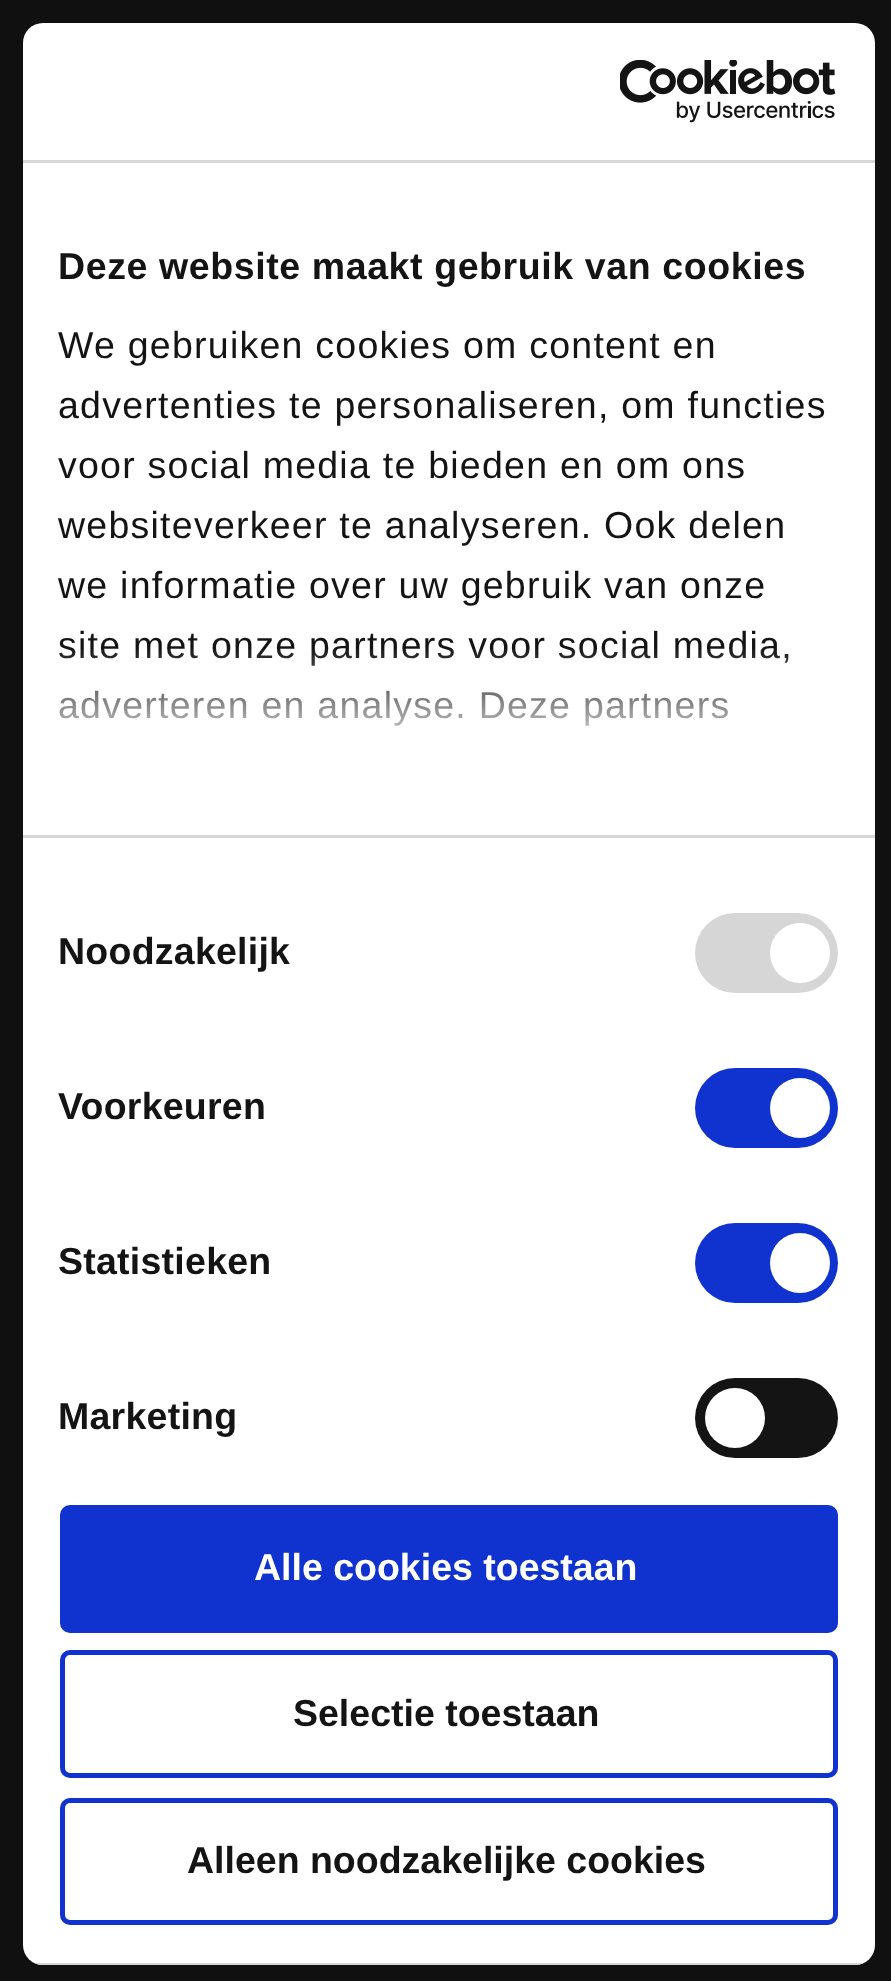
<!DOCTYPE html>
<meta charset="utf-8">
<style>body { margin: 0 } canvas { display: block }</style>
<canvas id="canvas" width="891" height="1981"></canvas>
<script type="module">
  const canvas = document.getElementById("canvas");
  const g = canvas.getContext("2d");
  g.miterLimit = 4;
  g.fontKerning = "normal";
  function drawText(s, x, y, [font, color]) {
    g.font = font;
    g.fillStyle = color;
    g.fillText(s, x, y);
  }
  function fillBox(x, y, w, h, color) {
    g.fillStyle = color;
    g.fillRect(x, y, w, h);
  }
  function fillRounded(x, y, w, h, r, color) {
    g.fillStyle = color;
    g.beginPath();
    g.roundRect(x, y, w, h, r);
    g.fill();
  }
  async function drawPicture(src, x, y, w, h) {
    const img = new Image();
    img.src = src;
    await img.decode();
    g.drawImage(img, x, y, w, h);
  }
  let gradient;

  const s1 = ["bold 37.5px Liberation Sans", "#141414"];
  const s2 = ["37.5px Liberation Sans", "#141414"];
  const s3 = ["bold 37.5px Liberation Sans", "#FFFFFF"];

  fillBox(0, 0, 891, 1981, "#101010");
  fillRounded(23, 23, 852, 1942, 20, "#FFFFFF");
  fillBox(23, 160, 852, 3, "#D6D6D6");
  await drawPicture("pic1.png", 620, 60, 216, 63);
  fillBox(23, 835, 852, 3, "#D6D6D6");
  g.letterSpacing = "0.6px";
  drawText("Deze website maakt gebruik van cookies", 58, 279, s1);
  g.letterSpacing = "1.25px";
  drawText("We gebruiken cookies om content en", 58, 358, s2);
  drawText("advertenties te personaliseren, om functies", 58, 418, s2);
  drawText("voor social media te bieden en om ons", 58, 478, s2);
  drawText("websiteverkeer te analyseren. Ook delen", 58, 538, s2);
  drawText("we informatie over uw gebruik van onze", 58, 598, s2);
  drawText("site met onze partners voor social media,", 58, 658, s2);
  drawText("adverteren en analyse. Deze partners", 58, 718, s2);
  gradient = g.createLinearGradient(431, 834, 431, 646);
  gradient.addColorStop(0, "#FFFFFF");
  gradient.addColorStop(0.5, "rgba(255, 255, 255, 0.8)");
  gradient.addColorStop(1, "rgba(255, 255, 255, 0)");
  g.fillStyle = gradient;
  g.fillRect(58, 649, 730, 77);
  g.letterSpacing = "0.25px";
  drawText("Noodzakelijk", 58, 964, s1);
  fillRounded(695, 913, 143, 80, 40, "#D6D6D6");
  g.fillStyle = "#FFFFFF";
  g.beginPath();
  g.arc(800, 953, 30, 0, Math.PI * 2);
  g.fill();
  drawText("Voorkeuren", 58, 1119, s1);
  fillRounded(695, 1068, 143, 80, 40, "#1032CF");
  g.fillStyle = "#FFFFFF";
  g.beginPath();
  g.arc(800, 1108, 30, 0, Math.PI * 2);
  g.fill();
  drawText("Statistieken", 58, 1274, s1);
  fillRounded(695, 1223, 143, 80, 40, "#1032CF");
  g.fillStyle = "#FFFFFF";
  g.beginPath();
  g.arc(800, 1263, 30, 0, Math.PI * 2);
  g.fill();
  drawText("Marketing", 58, 1429, s1);
  fillRounded(695, 1378, 143, 80, 40, "#141414");
  g.fillStyle = "#FFFFFF";
  g.beginPath();
  g.arc(735, 1418, 30, 0, Math.PI * 2);
  g.fill();
  g.save();
  g.beginPath();
  g.roundRect(23, 23, 852, 1942, 20);
  g.clip();
  fillBox(34, 1963, 830, 2, "#D6D6D6");
  g.restore();
  g.fillStyle = "#1032CF";
  g.beginPath();
  g.roundRect(62.5, 1507.5, 773, 123, 7.5);
  g.fill();
  g.strokeStyle = "#1032CF";
  g.lineWidth = 5;
  g.stroke();
  g.letterSpacing = "0px";
  drawText("Alle cookies toestaan", 254, 1580, s3);
  g.beginPath();
  g.roundRect(62.5, 1652.5, 773, 123, 7.5);
  g.stroke();
  drawText("Selectie toestaan", 293, 1726, s1);
  g.beginPath();
  g.roundRect(62.5, 1800.5, 773, 122, 7.5);
  g.stroke();
  drawText("Alleen noodzakelijke cookies", 187, 1873, s1);
</script>
